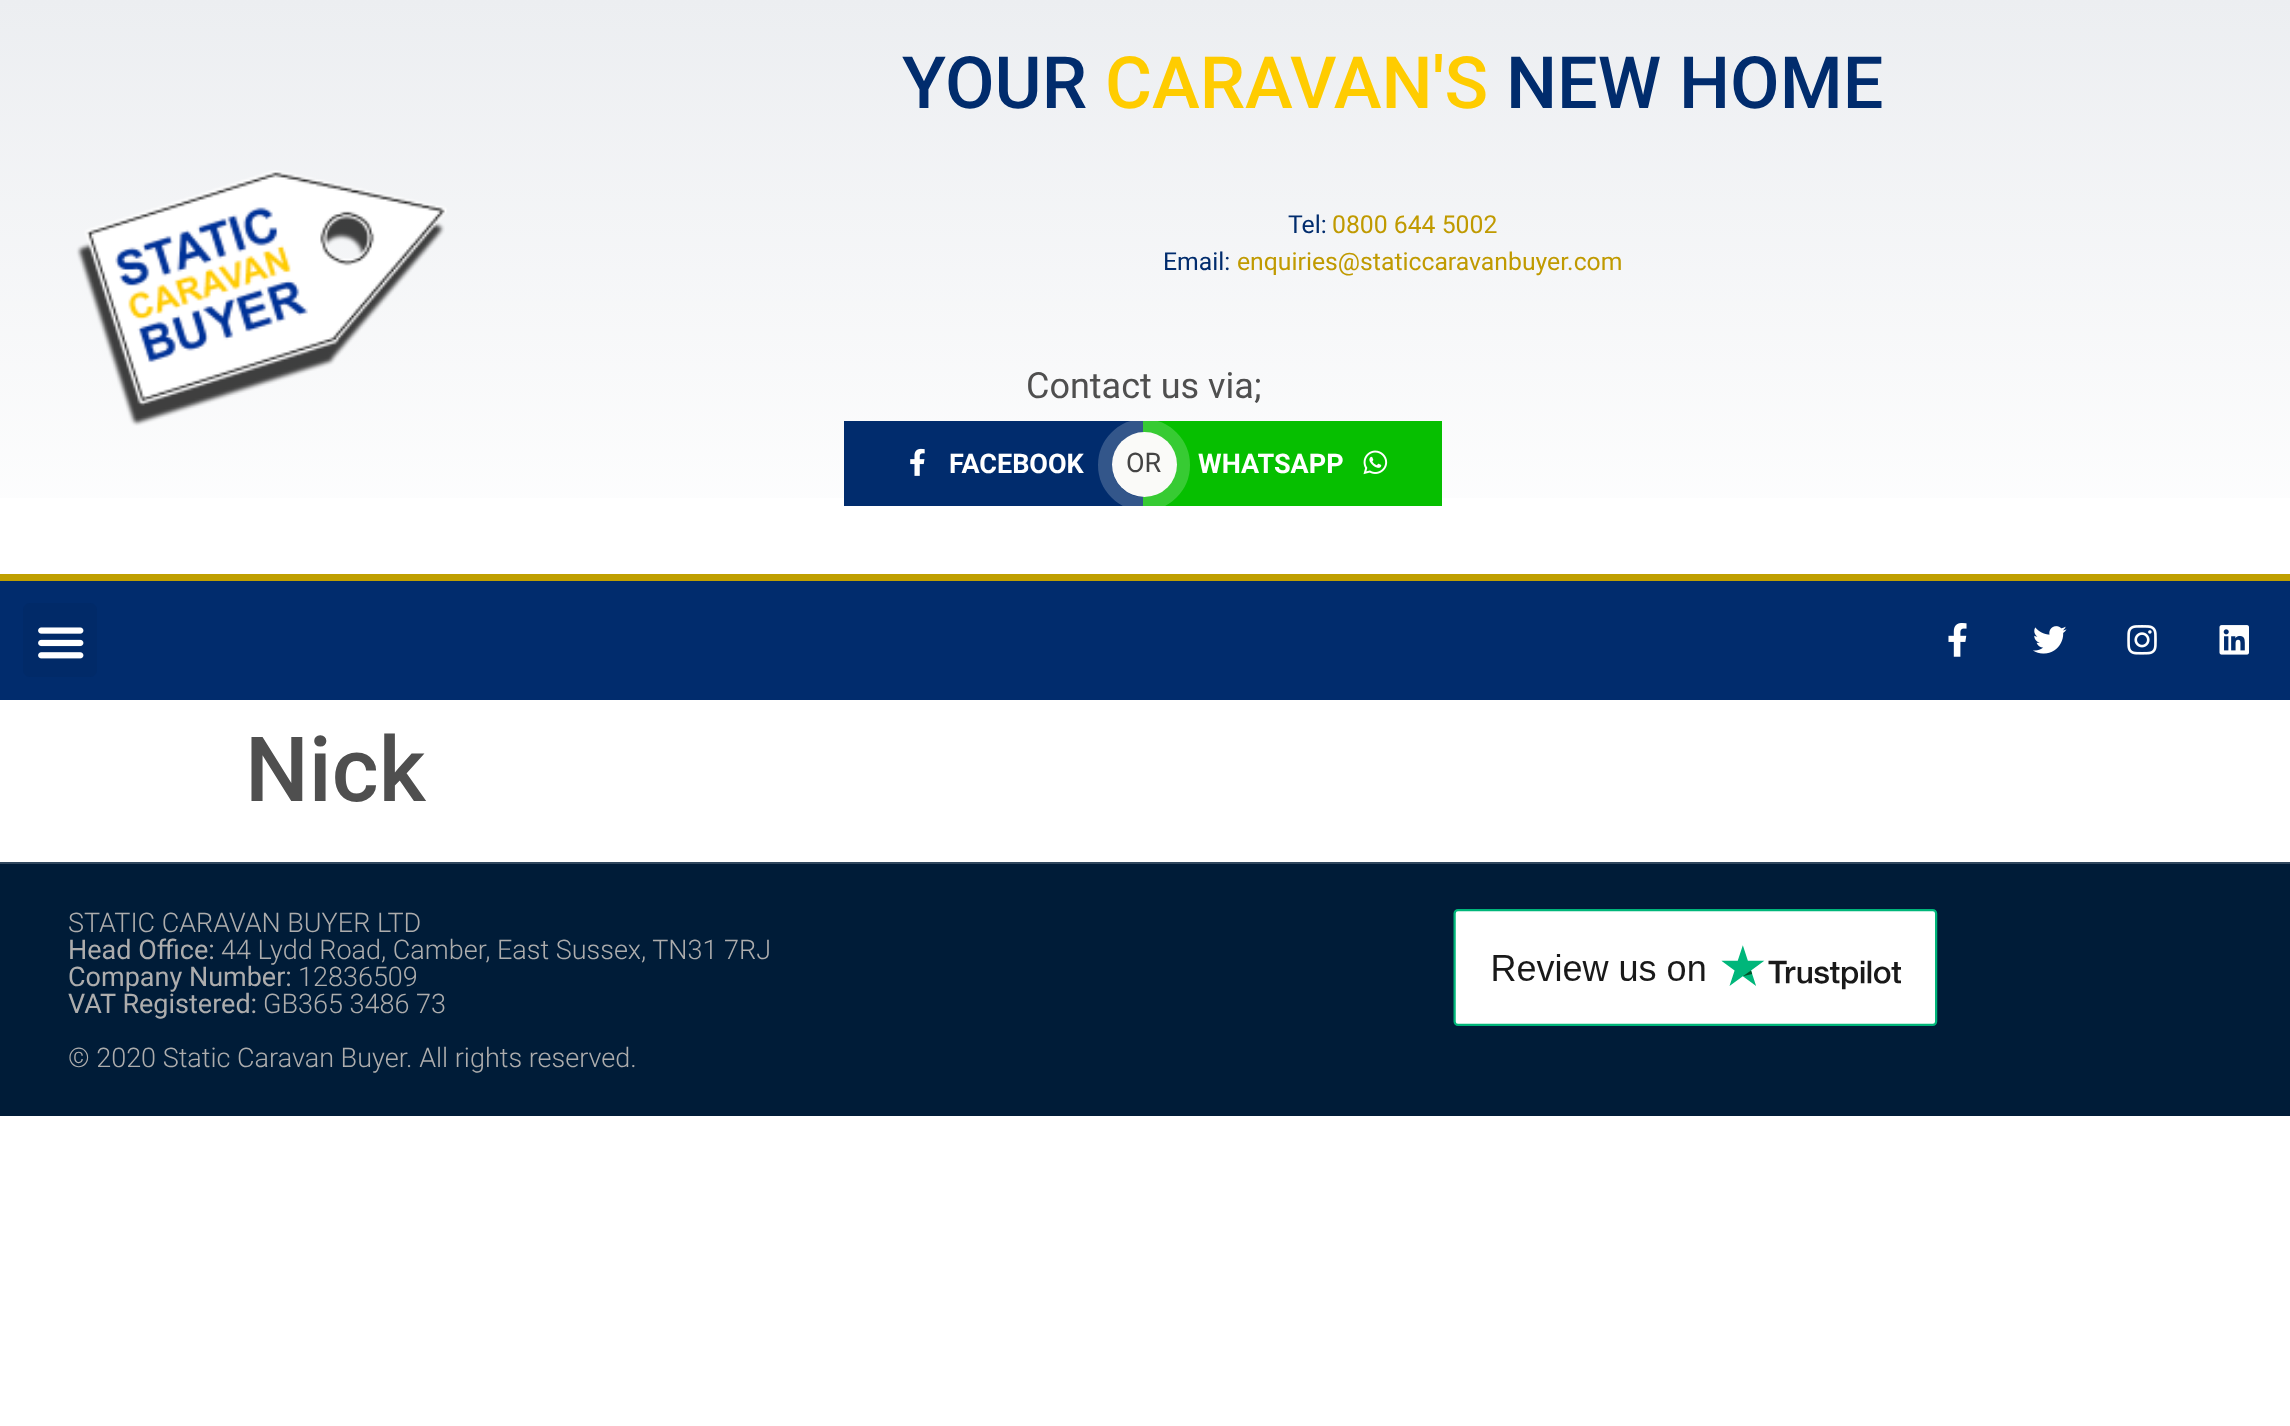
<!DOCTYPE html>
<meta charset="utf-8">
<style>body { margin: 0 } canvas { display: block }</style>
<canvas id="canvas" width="2290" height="1426"></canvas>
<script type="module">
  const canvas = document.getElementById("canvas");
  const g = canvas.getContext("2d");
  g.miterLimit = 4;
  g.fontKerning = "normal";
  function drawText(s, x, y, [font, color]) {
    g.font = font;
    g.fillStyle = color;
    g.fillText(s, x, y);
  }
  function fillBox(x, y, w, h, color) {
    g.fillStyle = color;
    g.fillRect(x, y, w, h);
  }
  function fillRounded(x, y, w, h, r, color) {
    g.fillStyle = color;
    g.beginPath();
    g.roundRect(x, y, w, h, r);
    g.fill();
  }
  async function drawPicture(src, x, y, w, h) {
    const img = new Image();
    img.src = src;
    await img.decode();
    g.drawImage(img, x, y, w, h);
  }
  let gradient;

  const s1 = ["500 72px Roboto", "#012C6D"];
  const s2 = ["500 72px Roboto", "#FFCC00"];
  const s3 = ["24.75px Roboto", "#012C6D"];
  const s4 = ["24.75px Roboto", "#C09A00"];
  const s5 = ["36px Roboto", "#4F4F4F"];
  const s6 = ["bold 27px Roboto", "#FFFFFF"];
  const s7 = ["27px Roboto", "#444444"];
  const s8 = ["500 90px Roboto", "#4F4F4F"];
  const s9 = ["300 27px Roboto", "#ADADAD"];
  const s10 = ["27px Roboto", "#ADADAD"];

  fillBox(0, 0, 2290, 1426, "#FFFFFF");
  gradient = g.createLinearGradient(1145, 0, 1145, 574);
  gradient.addColorStop(0, "#ECEEF1");
  gradient.addColorStop(1, "#FFFFFF");
  g.fillStyle = gradient;
  g.fillRect(0, 0, 2290, 498);
  await drawPicture("pic1.png", 76, 170, 371, 256);
  drawText("YOUR", 902, 108, s1);
  drawText("CARAVAN'S", 1105, 108, s2);
  drawText("NEW HOME", 1506, 108, s1);
  drawText("Tel:", 1288, 233, s3);
  drawText("0800 644 5002", 1332, 233, s4);
  drawText("Email:", 1163, 270, s3);
  drawText("enquiries@staticcaravanbuyer.com", 1237, 270, s4);
  drawText("Contact us via;", 1026, 398, s5);
  fillBox(844, 421, 299, 85, "#012C6D");
  await drawPicture("pic2.png", 910, 448, 15, 28);
  drawText("FACEBOOK", 949, 473, s6);
  fillBox(1143, 421, 299, 85, "#06BF00");
  g.beginPath();
  g.arc(1144, 465, 39, 0, Math.PI * 2);
  g.strokeStyle = "rgba(255, 255, 255, 0.2)";
  g.lineWidth = 14;
  g.stroke();
  g.fillStyle = "#FAFAF8";
  g.beginPath();
  g.arc(1144.5, 464.5, 32.5, 0, Math.PI * 2);
  g.fill();
  drawText("OR", 1126, 472, s7);
  drawText("WHATSAPP", 1198, 473, s6);
  await drawPicture("pic3.png", 1363, 450, 25, 25);
  fillBox(0, 581, 2290, 119, "#012C6D");
  fillBox(0, 574, 2290, 7, "#BF9F00");
  fillRounded(23, 603, 74, 74, 7, "#012A68");
  await drawPicture("pic4.png", 38, 627, 46, 32);
  await drawPicture("pic5.png", 1948, 623, 19, 34);
  await drawPicture("pic6.png", 2033, 626, 34, 28);
  await drawPicture("pic7.png", 2127, 625, 30, 30);
  await drawPicture("pic8.png", 2219, 625, 30, 30);
  drawText("Nick", 245, 801, s8);
  fillBox(0, 864, 2290, 252, "#001C38");
  fillBox(0, 862, 2290, 2, "#30475E");
  drawText("STATIC CARAVAN BUYER LTD", 68, 932, s9);
  drawText("Head Office:", 68, 959, s10);
  drawText("44 Lydd Road, Camber, East Sussex, TN31 7RJ", 221, 959, s9);
  drawText("Company Number:", 68, 986, s10);
  drawText("12836509", 298, 986, s9);
  drawText("VAT Registered:", 68, 1013, s10);
  drawText("GB365 3486 73", 263, 1013, s9);
  drawText("© 2020 Static Caravan Buyer. All rights reserved.", 68, 1067, s9);
  await drawPicture("pic9.png", 1453, 909, 485, 117);
</script>
